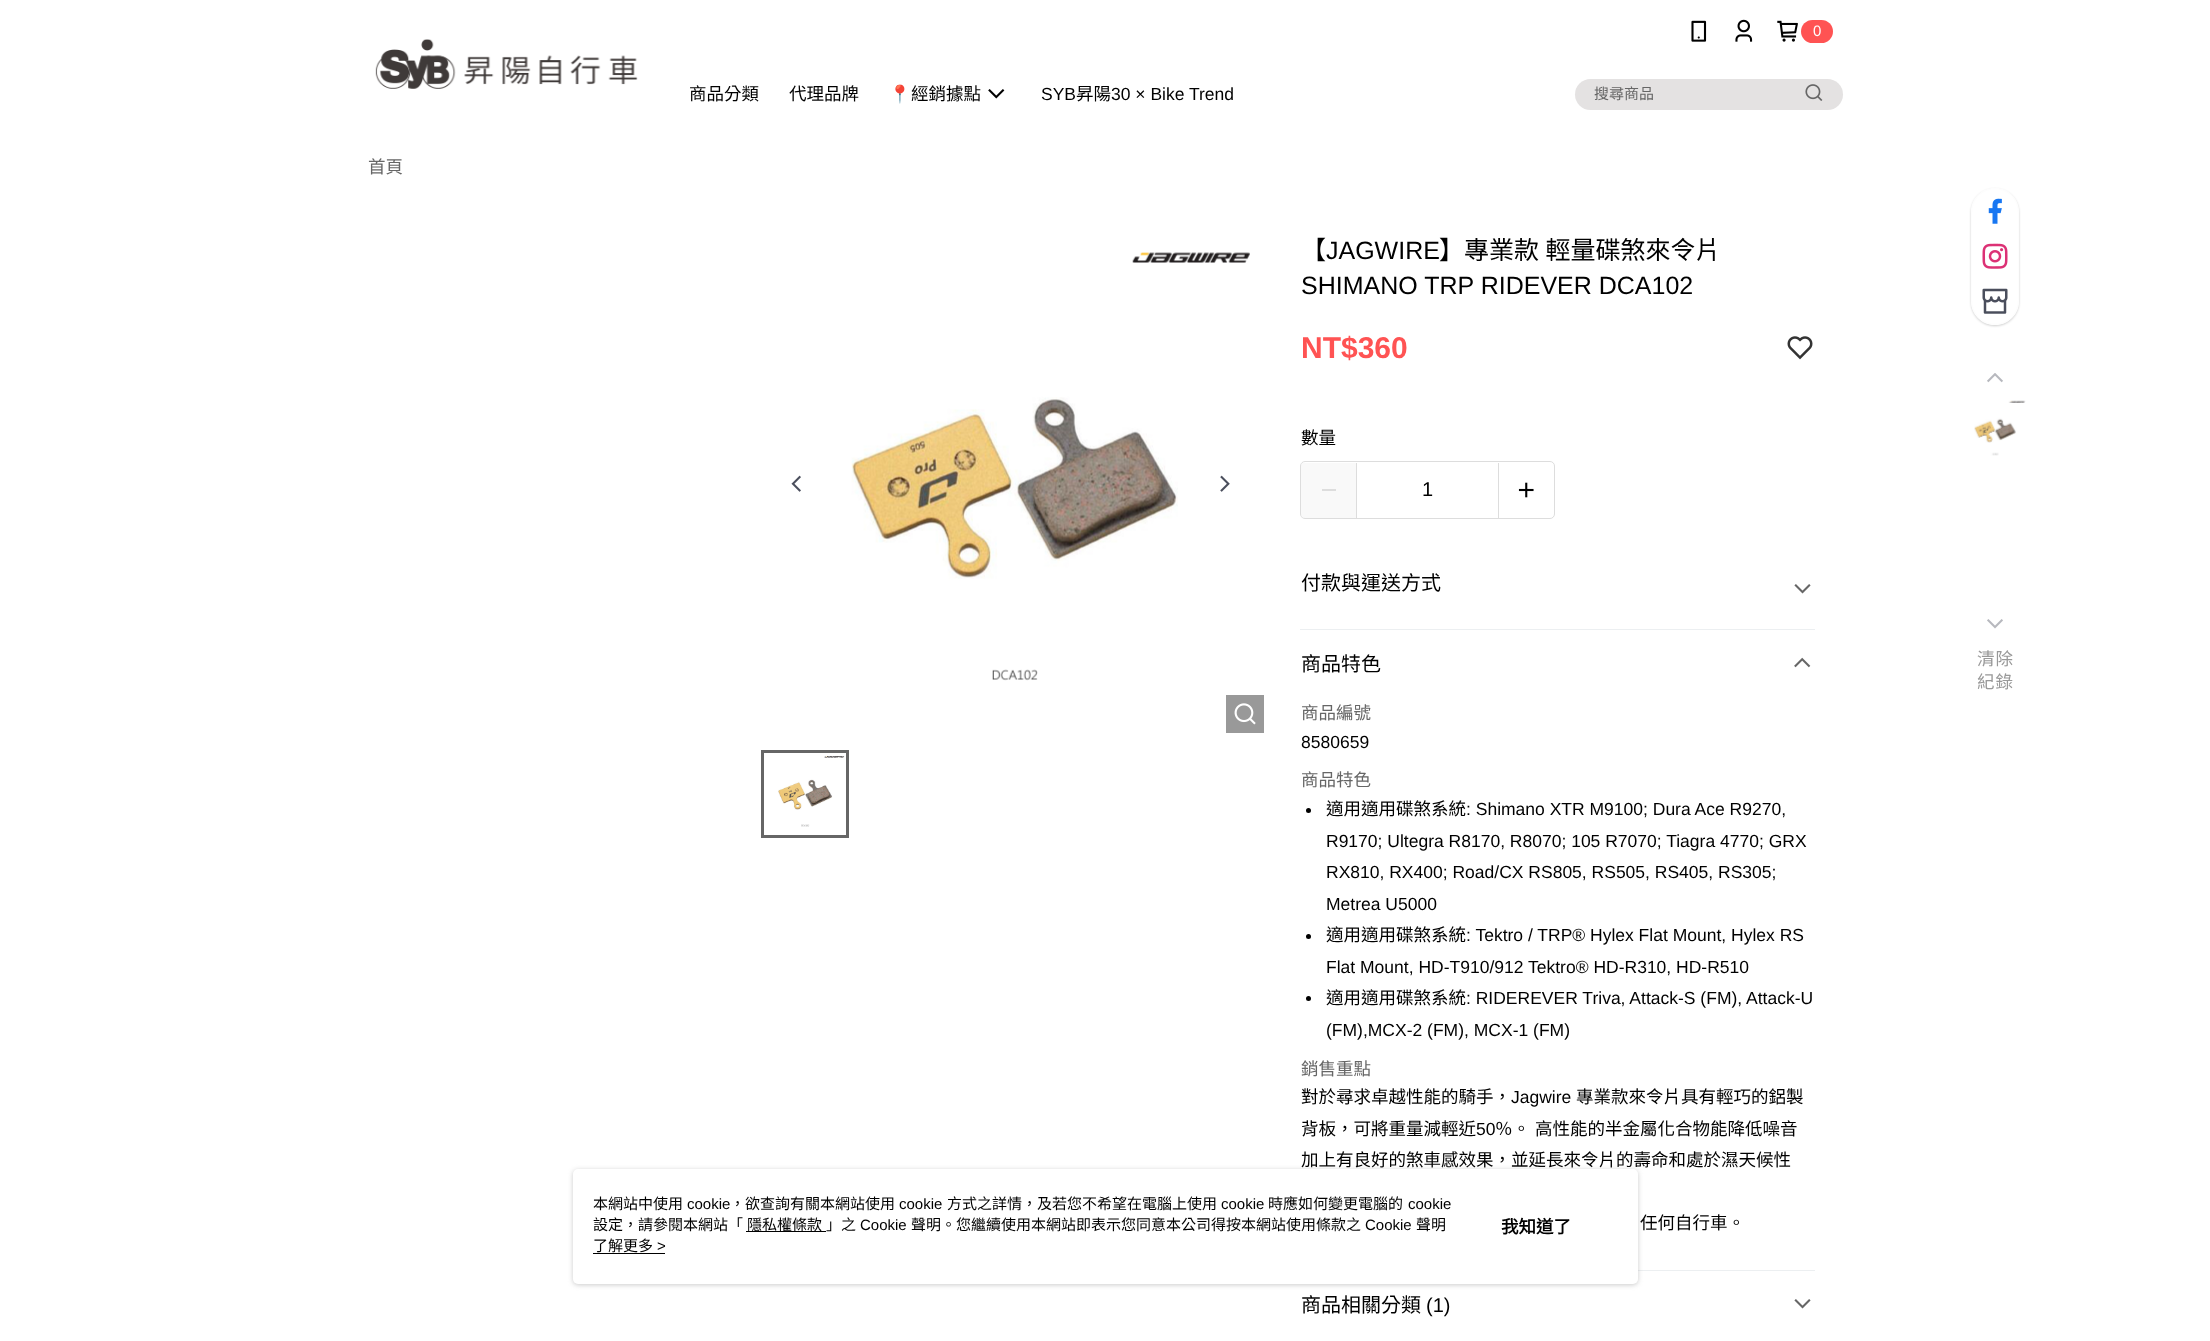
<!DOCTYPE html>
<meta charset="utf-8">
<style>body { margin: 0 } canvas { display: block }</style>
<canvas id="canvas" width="2210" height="1341"></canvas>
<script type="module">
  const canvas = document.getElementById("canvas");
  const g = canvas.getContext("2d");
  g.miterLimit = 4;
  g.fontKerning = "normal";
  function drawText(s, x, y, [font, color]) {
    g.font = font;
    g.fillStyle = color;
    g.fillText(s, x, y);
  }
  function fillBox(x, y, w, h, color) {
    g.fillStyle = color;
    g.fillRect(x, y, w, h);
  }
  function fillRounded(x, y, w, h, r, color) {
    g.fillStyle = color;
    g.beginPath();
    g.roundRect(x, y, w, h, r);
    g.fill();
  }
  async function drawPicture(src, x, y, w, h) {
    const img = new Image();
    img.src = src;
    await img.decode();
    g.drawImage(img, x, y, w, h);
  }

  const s1 = ["15px Liberation Sans", "#FFFFFF"];
  const s2 = ["17.5px Noto Sans CJK TC", "#000000"];
  const s3 = ["17.5px Noto Color Emoji", "#000000"];
  const s4 = ["17.5px Liberation Sans", "#000000"];
  const s5 = ["15px Noto Sans CJK TC", "#666666"];
  const s6 = ["17.5px Noto Sans CJK TC", "#666666"];
  const s7 = ["25px Noto Sans CJK TC", "#000000"];
  const s8 = ["25px Liberation Sans", "#000000"];
  const s9 = ["bold 30px Liberation Sans", "#FF5353"];
  const s10 = ["20px Liberation Sans", "#000000"];
  const s11 = ["20px Noto Sans CJK TC", "#000000"];
  const s12 = ["17.5px Noto Sans CJK TC", "#999999"];
  const s13 = ["15px Noto Sans CJK TC", "#000000"];
  const s14 = ["15px Liberation Sans", "#000000"];
  const s15 = ["bold 17.5px Noto Sans CJK TC", "#000000"];

  fillBox(0, 0, 2210, 1341, "#FFFFFF");
  await drawPicture("pic1.png", 375, 39, 263, 50);
  await drawPicture("pic2.png", 1691, 20, 16, 22);
  await drawPicture("pic3.png", 1735, 19, 18, 23);
  await drawPicture("pic4.png", 1777, 20, 21, 22);
  fillRounded(1801, 20, 32, 23, 11.5, "#FF5353");
  drawText("0", 1813, 36, s1);
  drawText("商品分類", 689, 100, s2);
  drawText("代理品牌", 789, 100, s2);
  drawText("📍", 889, 100, s3);
  drawText("經銷據點", 911, 100, s2);
  await drawPicture("pic5.png", 988, 89, 17, 10);
  drawText("SYB", 1041, 100, s4);
  drawText("昇陽", 1076, 100, s2);
  drawText("30 × Bike Trend", 1111, 100, s4);
  fillRounded(1575, 79, 268, 31, 15.5, "#E4E2E2");
  drawText("搜尋商品", 1594, 99, s5);
  await drawPicture("pic6.png", 1805, 84, 18, 17);
  drawText("首頁", 368, 173, s6);
  await drawPicture("pic7.png", 791, 475, 10, 17);
  await drawPicture("pic8.png", 851, 252, 399, 429);
  fillBox(1226, 695, 38, 38, "#999999");
  await drawPicture("pic9.png", 1234, 703, 22, 22);
  await drawPicture("pic10.png", 1220, 475, 10, 17);
  await drawPicture("pic11.png", 778, 756, 67, 71);
  g.strokeStyle = "#666666";
  g.lineWidth = 3;
  g.strokeRect(762.5, 751.5, 85, 85);
  drawText("【", 1301, 259, s7);
  drawText("JAGWIRE", 1326, 259, s8);
  g.wordSpacing = "1px";
  drawText("】專業款 輕量碟煞來令片", 1439, 259, s7);
  g.wordSpacing = "0px";
  drawText("SHIMANO TRP RIDEVER DCA102", 1301, 294, s8);
  drawText("NT$360", 1301, 358, s9);
  await drawPicture("pic12.png", 1787, 336, 26, 24);
  drawText("數量", 1301, 444, s2);
  g.beginPath();
  g.roundRect(1300.5, 461.5, 254, 57, 4.5);
  g.strokeStyle = "#DDDDDD";
  g.lineWidth = 1;
  g.stroke();
  fillBox(1301, 463, 55, 55, "rgba(241, 241, 241, 0.4)");
  fillBox(1322, 489, 14, 2, "#DDDDDD");
  fillBox(1498, 463, 1, 55, "#DDDDDD");
  fillBox(1356, 463, 1, 55, "#DDDDDD");
  drawText("1", 1422, 496, s10);
  await drawPicture("pic13.png", 1518, 482, 16, 16);
  fillBox(1300, 629, 515, 1, "#ECEFF1");
  drawText("付款與運送方式", 1301, 590, s11);
  await drawPicture("pic14.png", 1794, 584, 17, 10);
  fillBox(1638, 1270, 177, 1, "#ECEFF1");
  drawText("商品特色", 1301, 671, s11);
  await drawPicture("pic15.png", 1794, 657, 17, 11);
  drawText("商品編號", 1301, 719, s6);
  drawText("8580659", 1301, 748, s4);
  drawText("商品特色", 1301, 786, s6);
  g.fillStyle = "#000000";
  g.beginPath();
  g.arc(1308.5, 810.5, 2.5, 0, Math.PI * 2);
  g.fill();
  drawText("適用適用碟煞系統", 1326, 815, s2);
  drawText(": Shimano XTR M9100; Dura Ace R9270,", 1466, 815, s4);
  drawText("R9170; Ultegra R8170, R8070; 105 R7070; Tiagra 4770; GRX", 1326, 847, s4);
  drawText("RX810, RX400; Road/CX RS805, RS505, RS405, RS305;", 1326, 878, s4);
  drawText("Metrea U5000", 1326, 910, s4);
  g.beginPath();
  g.arc(1308.5, 936.5, 2.5, 0, Math.PI * 2);
  g.fill();
  drawText("適用適用碟煞系統", 1326, 941, s2);
  drawText(": Tektro / TRP®", 1466, 941, s4);
  drawText("Hylex Flat Mount, Hylex RS", 1590, 941, s4);
  drawText("Flat Mount, HD-T910/912 Tektro® HD-R310, HD-R510", 1326, 973, s4);
  g.beginPath();
  g.arc(1308.5, 998.5, 2.5, 0, Math.PI * 2);
  g.fill();
  drawText("適用適用碟煞系統", 1326, 1004, s2);
  drawText(": RIDEREVER Triva, Attack-S (FM), Attack-U", 1466, 1004, s4);
  drawText("(FM),MCX-2 (FM), MCX-1 (FM)", 1326, 1036, s4);
  drawText("銷售重點", 1301, 1075, s6);
  drawText("對於尋求卓越性能的騎手，", 1301, 1103, s2);
  drawText("Jagwire", 1511, 1103, s4);
  drawText("專業款來令片具有輕巧的鋁製", 1576, 1103, s2);
  drawText("背板，可將重量減輕近", 1301, 1135, s2);
  drawText("50", 1476, 1135, s4);
  g.wordSpacing = "1px";
  drawText("％。 高性能的半金屬化合物能降低噪音", 1495, 1135, s2);
  g.wordSpacing = "0px";
  drawText("加上有良好的煞車感效果，並延長來令片的壽命和處於濕天候性", 1301, 1166, s2);
  drawText("任何自行車。", 1640, 1229, s2);
  drawText("商品相關分類", 1301, 1312, s11);
  drawText("(1)", 1426, 1312, s10);
  await drawPicture("pic14.png", 1794, 1299, 17, 10);
  g.save();
  g.beginPath();
  g.moveTo(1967, 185);
  g.lineTo(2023, 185);
  g.lineTo(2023, 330);
  g.lineTo(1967, 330);
  g.closePath();
  g.moveTo(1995, 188);
  g.bezierCurveTo(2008.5, 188, 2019, 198.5, 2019, 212);
  g.lineTo(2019, 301);
  g.bezierCurveTo(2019, 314.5, 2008.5, 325, 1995, 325);
  g.bezierCurveTo(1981.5, 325, 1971, 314.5, 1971, 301);
  g.lineTo(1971, 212);
  g.bezierCurveTo(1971, 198.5, 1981.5, 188, 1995, 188);
  g.closePath();
  g.clip("evenodd");
  g.fillStyle = "rgba(0, 0, 0, 0.2)";
  g.filter = "blur(1px)";
  g.beginPath();
  g.roundRect(1971, 189, 48, 137, 24);
  g.fill();
  g.filter = "none";
  g.restore();
  g.fillStyle = "rgba(255, 255, 255, 0.9)";
  g.beginPath();
  g.roundRect(1971.5, 188.5, 47, 136, 23.5);
  g.fill();
  g.strokeStyle = "#FDFDFD";
  g.stroke();
  await drawPicture("pic16.png", 1988, 198, 14, 26);
  await drawPicture("pic17.png", 1982, 243, 26, 26);
  await drawPicture("pic18.png", 1982, 288, 26, 26);
  await drawPicture("pic19.png", 1987, 373, 16, 10);
  await drawPicture("pic20.png", 1974, 400, 52, 56);
  await drawPicture("pic21.png", 1987, 619, 16, 10);
  g.letterSpacing = "1px";
  drawText("清除", 1977, 665, s12);
  drawText("紀錄", 1977, 688, s12);
  g.fillStyle = "rgba(151, 151, 151, 0.5)";
  g.filter = "blur(2.5px)";
  g.beginPath();
  g.roundRect(573, 1170, 1065, 115, 5);
  g.fill();
  g.filter = "none";
  fillRounded(573, 1169, 1065, 115, 5, "#FFFFFF");
  g.letterSpacing = "0px";
  drawText("本網站中使用", 593, 1209, s13);
  drawText("cookie", 687, 1209, s14);
  drawText("，欲查詢有關本網站使用", 730, 1209, s13);
  drawText("cookie", 899, 1209, s14);
  drawText("方式之詳情，及若您不希望在電腦上使用", 947, 1209, s13);
  drawText("cookie", 1221, 1209, s14);
  drawText("時應如何變更電腦的", 1268, 1209, s13);
  drawText("cookie", 1408, 1209, s14);
  drawText("設定，請參閱本網站「", 593, 1230, s13);
  fillBox(746, 1231, 75, 1, "#000000");
  drawText("隱私權條款", 747, 1230, s13);
  fillBox(821, 1231, 5, 1, "#000000");
  drawText("」之", 826, 1230, s13);
  drawText("Cookie", 860, 1230, s14);
  drawText("聲明。您繼續使用本網站即表示您同意本公司得按本網站使用條款之", 911, 1230, s13);
  drawText("Cookie", 1365, 1230, s14);
  drawText("聲明", 1416, 1230, s13);
  drawText("了解更多", 593, 1251, s13);
  drawText(">", 657, 1251, s14);
  fillBox(593, 1253, 72, 1, "#000000");
  drawText("我知道了", 1501, 1233, s15);
</script>
